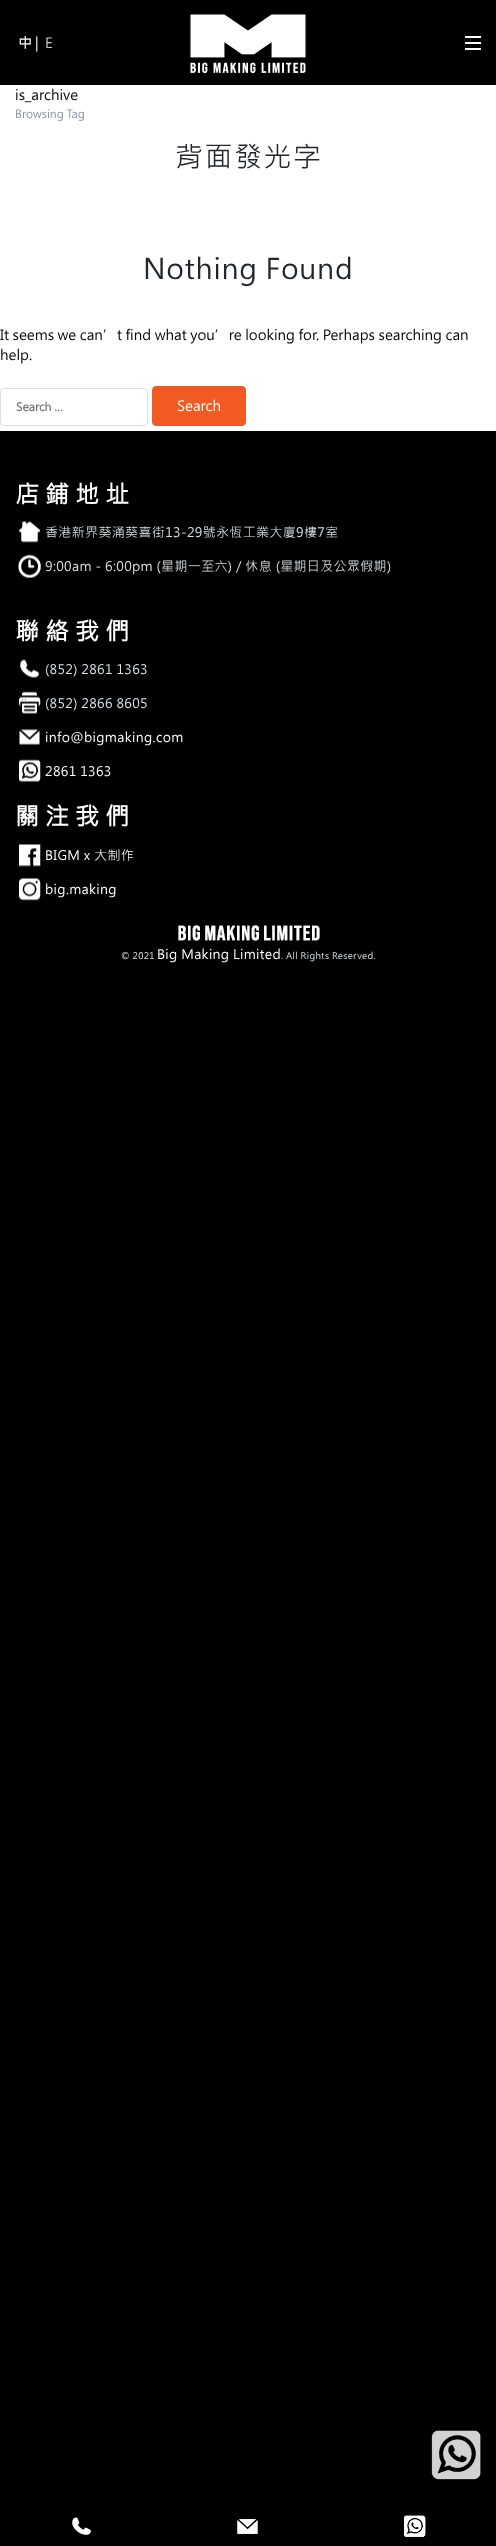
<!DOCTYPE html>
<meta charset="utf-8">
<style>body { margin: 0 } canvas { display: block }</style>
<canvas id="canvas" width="496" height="2546"></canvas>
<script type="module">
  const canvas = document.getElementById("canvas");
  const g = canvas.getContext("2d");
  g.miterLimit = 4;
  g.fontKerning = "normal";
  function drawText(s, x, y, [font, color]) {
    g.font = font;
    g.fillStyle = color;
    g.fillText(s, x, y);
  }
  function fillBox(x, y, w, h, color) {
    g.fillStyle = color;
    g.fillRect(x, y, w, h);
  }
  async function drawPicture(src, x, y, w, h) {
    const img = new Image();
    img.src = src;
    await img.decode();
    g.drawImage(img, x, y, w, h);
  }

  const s1 = ["bold 14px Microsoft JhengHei", "#FFFFFF"];
  const s2 = ["14px Microsoft JhengHei", "#FFFFFF"];
  const s3 = ["14px Microsoft JhengHei", "#CCCCCC"];
  const s4 = ["14px Microsoft JhengHei", "#000000"];
  const s5 = ["11.25px Microsoft JhengHei", "#86919D"];
  const s6 = ["28px Microsoft JhengHei", "#21272C"];
  const s7 = ["bold 11.25px Microsoft JhengHei", "#757575"];
  const s8 = ["bold 24px Microsoft JhengHei", "#FFFFFF"];
  const s9 = ["13px Microsoft JhengHei", "#DAE1E7"];
  const s10 = ["13px Microsoft JhengHei", "#FFFFFF"];
  const s11 = ["9px Microsoft JhengHei", "#DAE1E7"];

  fillBox(0, 0, 496, 2546, "#000000");
  fillBox(0, 85, 496, 346, "#FFFFFF");
  drawText("中", 18, 48, s1);
  drawText("|", 35, 48, s2);
  drawText("E", 45, 48, s3);
  await drawPicture("pic1.png", 190, 14, 116, 59);
  fillBox(465, 36, 16, 2, "#FFFFFF");
  fillBox(465, 42, 16, 2, "#FFFFFF");
  fillBox(465, 48, 16, 2, "#FFFFFF");
  drawText("is_archive", 15, 100, s4);
  drawText("Browsing Tag", 15, 118, s5);
  g.letterSpacing = "1.5px";
  drawText("背面發光字", 175, 167, s6);
  g.letterSpacing = "0.75px";
  drawText("Nothing Found", 143, 279, s6);
  g.letterSpacing = "0px";
  drawText("It seems we can’t find what you’re looking for. Perhaps searching can", 0, 340, s4);
  drawText("help.", 0, 360, s4);
  g.beginPath();
  g.roundRect(0.5, 388.5, 147, 37, 3.5);
  g.strokeStyle = "#DAE1E7";
  g.stroke();
  drawText("Search …", 16, 411, s7);
  g.fillStyle = "#F15A22";
  g.beginPath();
  g.roundRect(152.5, 386.5, 93, 39, 3.5);
  g.fill();
  g.strokeStyle = "#F15A22";
  g.stroke();
  drawText("Search", 177, 411, s2);
  g.letterSpacing = "6px";
  drawText("店鋪地址", 15, 503, s8);
  await drawPicture("pic2.png", 19, 521, 22, 22);
  g.letterSpacing = "0.35px";
  drawText("香港新界葵涌葵喜街13-29號永恆工業大廈9樓7室", 45, 537, s9);
  await drawPicture("pic3.png", 18, 554, 23, 24);
  drawText("9:00am - 6:00pm (星期一至六) / 休息 (星期日及公眾假期)", 45, 571, s9);
  g.letterSpacing = "6px";
  drawText("聯絡我們", 15, 640, s8);
  await drawPicture("pic4.png", 20, 659, 19, 19);
  g.letterSpacing = "0.35px";
  drawText("(852) 2861 1363", 45, 674, s9);
  await drawPicture("pic5.png", 19, 691, 22, 23);
  drawText("(852) 2866 8605", 45, 708, s9);
  await drawPicture("pic6.png", 19, 729, 21, 16);
  drawText("info@bigmaking.com", 45, 742, s10);
  await drawPicture("pic7.png", 19, 759, 22, 23);
  drawText("2861 1363", 45, 776, s10);
  g.letterSpacing = "6px";
  drawText("關注我們", 15, 825, s8);
  await drawPicture("pic8.png", 19, 844, 22, 23);
  g.letterSpacing = "0.35px";
  drawText("BIGM x 大制作", 45, 860, s10);
  await drawPicture("pic9.png", 19, 878, 22, 23);
  drawText("big.making", 45, 894, s10);
  await drawPicture("pic10.png", 178, 925, 142, 16);
  drawText("© 2021", 121, 959, s11);
  drawText("Big Making Limited", 157, 959, s10);
  drawText(". All Rights Reserved.", 281, 959, s11);
  await drawPicture("pic11.png", 72, 2517, 19, 18);
  await drawPicture("pic12.png", 237, 2519, 21, 15);
  await drawPicture("pic13.png", 237, 2519, 21, 15);
  await drawPicture("pic14.png", 404, 2515, 22, 22);
  await drawPicture("pic15.png", 404, 2515, 22, 22);
  await drawPicture("pic16.png", 431, 2430, 50, 50);
</script>
